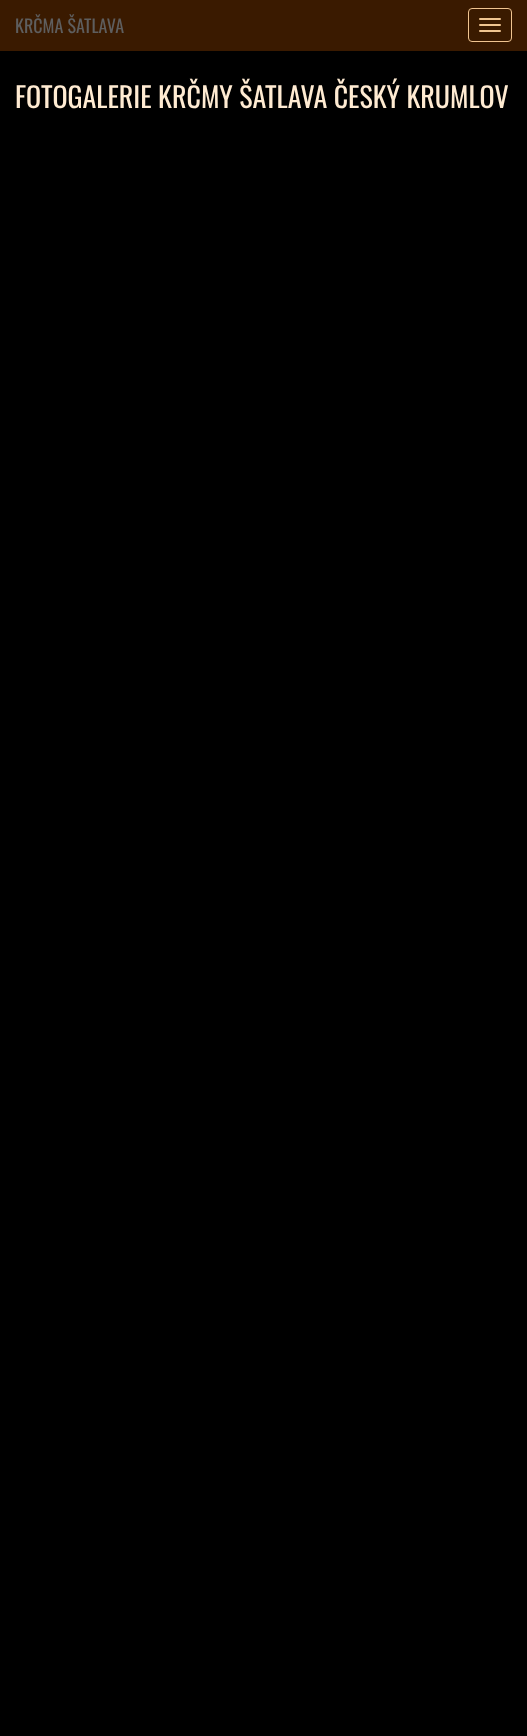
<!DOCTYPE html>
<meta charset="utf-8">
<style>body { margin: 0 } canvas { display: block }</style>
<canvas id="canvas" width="527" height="1736"></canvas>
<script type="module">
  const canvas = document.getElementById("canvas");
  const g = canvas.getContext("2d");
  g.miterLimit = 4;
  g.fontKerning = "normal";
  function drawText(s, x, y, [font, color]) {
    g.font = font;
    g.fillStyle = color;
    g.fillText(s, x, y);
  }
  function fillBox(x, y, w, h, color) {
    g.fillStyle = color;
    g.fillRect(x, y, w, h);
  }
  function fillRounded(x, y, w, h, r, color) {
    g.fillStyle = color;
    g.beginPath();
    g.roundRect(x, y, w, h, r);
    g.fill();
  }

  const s1 = ["18px Oswald", "#5E5E5E"];
  const s2 = ["28px Oswald", "#FFEBD2"];

  fillBox(0, 0, 527, 1736, "#000000");
  fillBox(0, 0, 527, 51, "#3A1A00");
  drawText("KRČMA ŠATLAVA", 15, 33, s1);
  g.beginPath();
  g.roundRect(468.5, 8.5, 43, 33, 3.5);
  g.strokeStyle = "#F0C591";
  g.stroke();
  fillRounded(479, 18, 22, 2, 1, "#F0C591");
  fillRounded(479, 24, 22, 2, 1, "#F0C591");
  fillRounded(479, 30, 22, 2, 1, "#F0C591");
  drawText("FOTOGALERIE KRČMY ŠATLAVA ČESKÝ KRUMLOV", 15, 108, s2);
</script>
